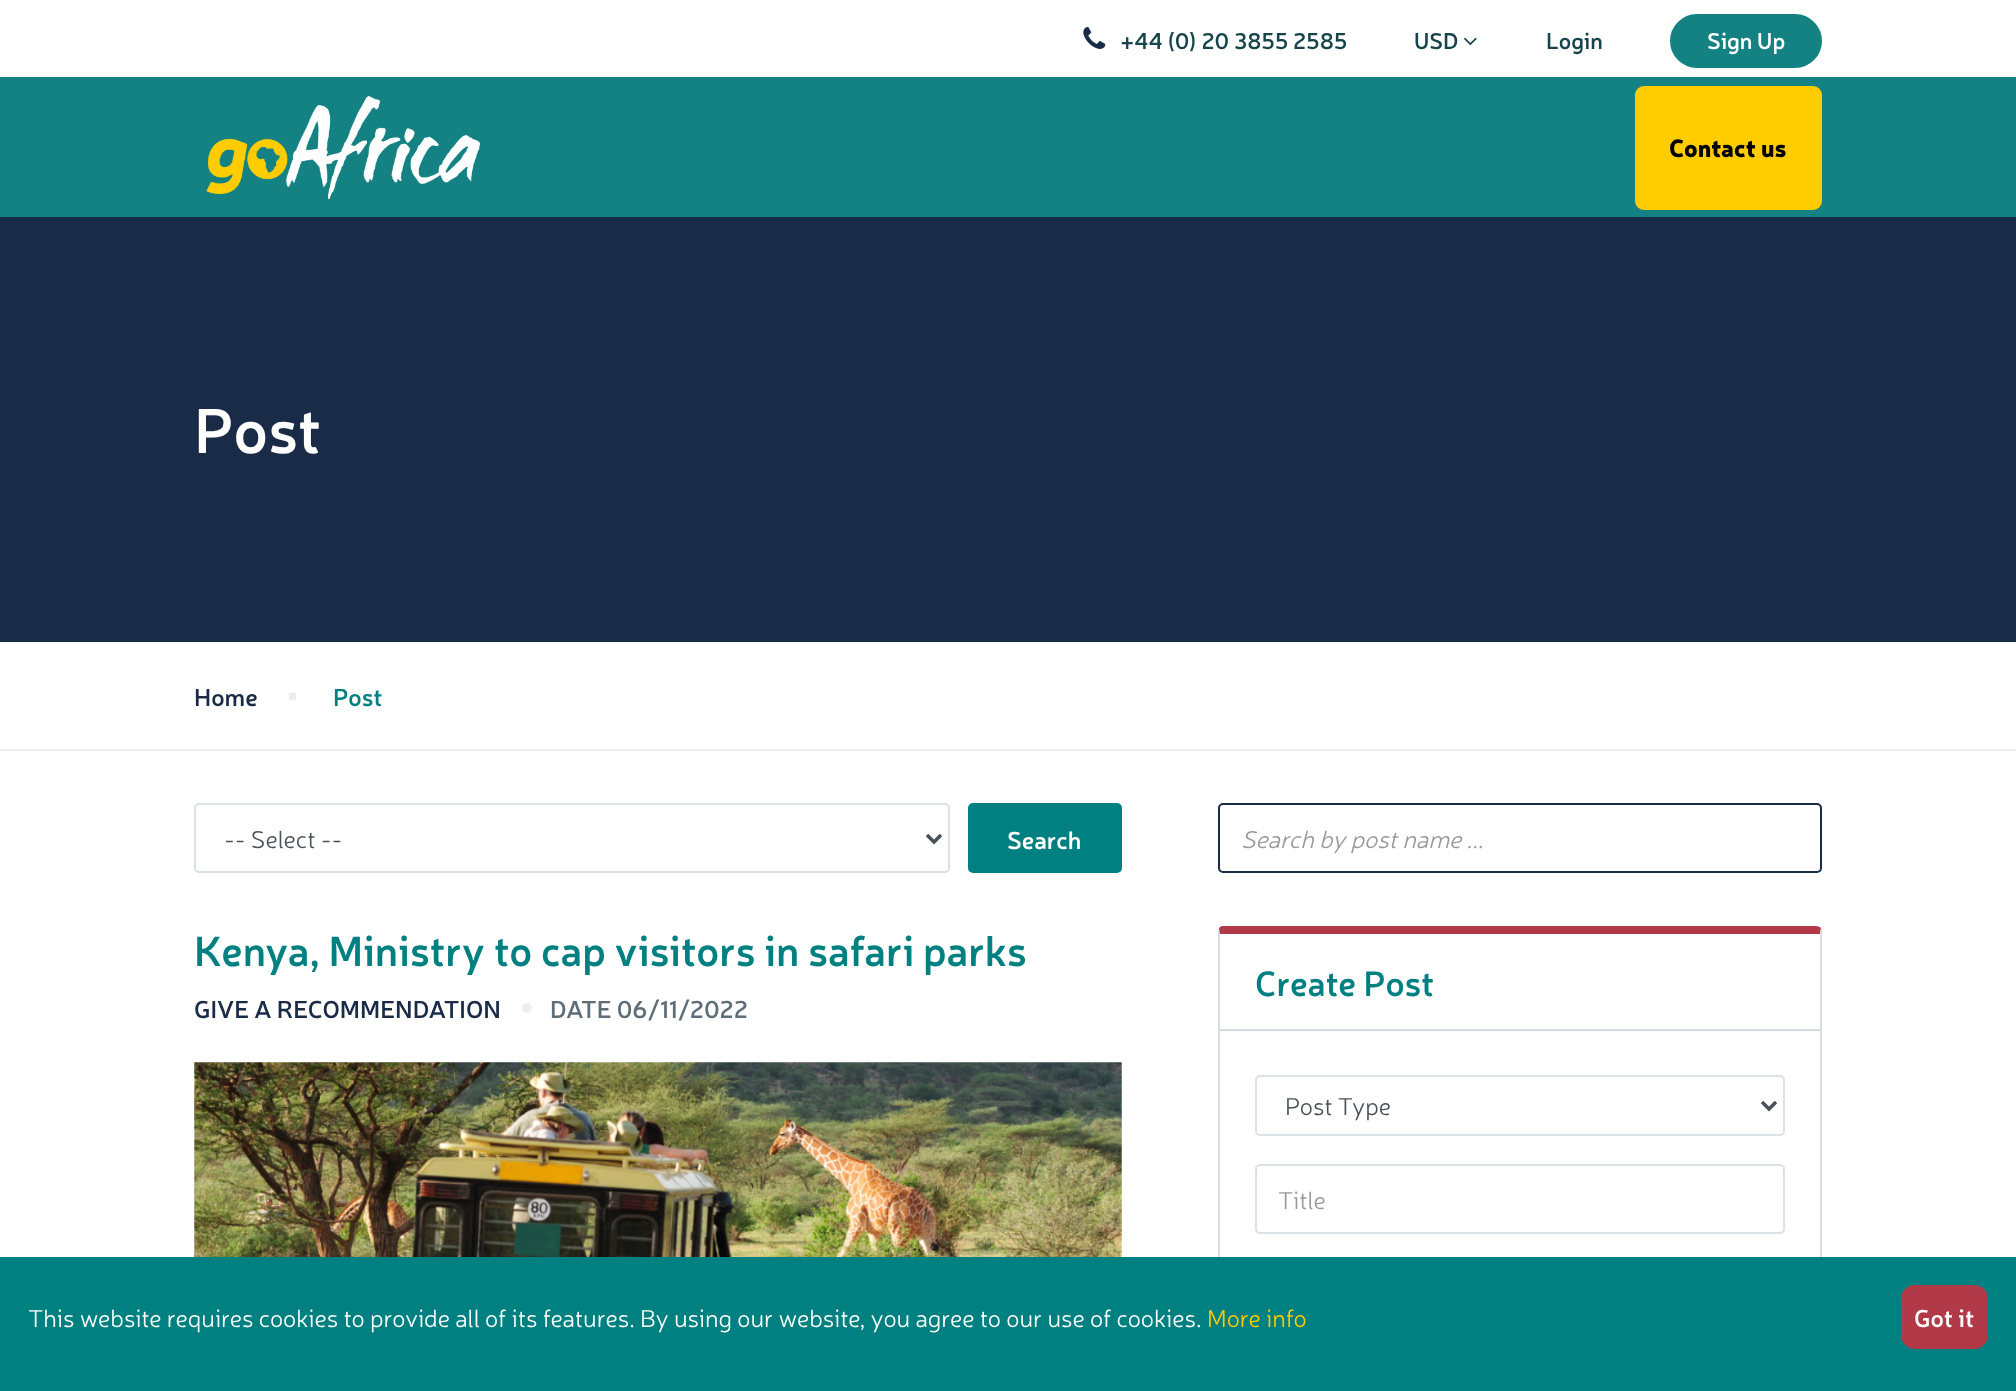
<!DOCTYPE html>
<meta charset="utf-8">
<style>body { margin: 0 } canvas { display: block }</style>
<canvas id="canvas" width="2016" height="1391"></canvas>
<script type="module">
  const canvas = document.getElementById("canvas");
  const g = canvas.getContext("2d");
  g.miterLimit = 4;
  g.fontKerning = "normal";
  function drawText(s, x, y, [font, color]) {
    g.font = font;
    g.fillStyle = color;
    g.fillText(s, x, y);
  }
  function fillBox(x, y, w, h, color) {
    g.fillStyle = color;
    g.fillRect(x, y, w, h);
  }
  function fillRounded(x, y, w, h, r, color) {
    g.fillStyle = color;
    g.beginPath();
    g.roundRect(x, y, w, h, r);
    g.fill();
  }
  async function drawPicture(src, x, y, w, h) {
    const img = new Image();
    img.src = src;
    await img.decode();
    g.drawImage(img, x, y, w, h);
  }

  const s1 = ["600 22.75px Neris", "#18454B"];
  const s2 = ["600 22.75px Neris", "#FFFFFF"];
  const s3 = ["900 24.5px Neris", "#000000"];
  const s4 = ["600 63px Neris", "#FFFFFF"];
  const s5 = ["600 24.5px Neris", "#1A2B48"];
  const s6 = ["600 24.5px Neris", "#008081"];
  const s7 = ["300 24.5px Neris", "#495057"];
  const s8 = ["600 24.5px Neris", "#FFFFFF"];
  const s9 = ["600 42px Neris", "#008081"];
  const s10 = ["600 24.5px Neris", "#5E6D77"];
  const s11 = ["italic 300 24.5px Neris", "#999999"];
  const s12 = ["600 35px Neris", "#008081"];
  const s13 = ["300 24.5px Neris", "#999999"];
  const s14 = ["300 24.5px Neris", "#FFFFFF"];
  const s15 = ["300 24.5px Neris", "#FFCC00"];

  fillBox(0, 0, 2016, 1391, "#FFFFFF");
  await drawPicture("pic1.png", 1083, 27, 23, 22);
  drawText("+44 (0) 20 3855 2585", 1120, 49, s1);
  drawText("USD", 1414, 49, s1);
  await drawPicture("pic2.png", 1464, 37, 13, 9);
  drawText("Login", 1546, 49, s1);
  g.fillStyle = "#148283";
  g.beginPath();
  g.roundRect(1671, 15, 150, 52, 26);
  g.fill();
  g.strokeStyle = "#148283";
  g.lineWidth = 2;
  g.stroke();
  drawText("Sign Up", 1707, 49, s2);
  fillBox(0, 77, 2016, 140, "#148283");
  await drawPicture("pic3.png", 206, 95, 275, 105);
  fillRounded(1635, 86, 187, 124, 9, "#FFCC00");
  drawText("Contact us", 1669, 157, s3);
  fillBox(0, 217, 2016, 425, "#1A2B48");
  drawText("Post", 194, 453, s4);
  fillBox(0, 749, 2016, 2, "#EAEEF3");
  drawText("Home", 194, 706, s5);
  fillBox(289, 693, 7, 7, "#EAEEF3");
  drawText("Post", 333, 706, s6);
  g.beginPath();
  g.roundRect(195, 804, 754, 68, 4);
  g.strokeStyle = "#DAE1E7";
  g.stroke();
  g.beginPath();
  g.moveTo(927, 835);
  g.lineTo(934, 842);
  g.lineTo(941, 835);
  g.strokeStyle = "#495057";
  g.lineWidth = 3.5;
  g.stroke();
  drawText("-- Select --", 224, 848, s7);
  fillRounded(968, 803, 154, 70, 5, "#008081");
  drawText("Search", 1007, 849, s8);
  drawText("Kenya, Ministry to cap visitors in safari parks", 194, 966, s9);
  drawText("GIVE A RECOMMENDATION", 194, 1018, s5);
  g.fillStyle = "#EEEEEE";
  g.beginPath();
  g.arc(527, 1008, 5, 0, Math.PI * 2);
  g.fill();
  drawText("DATE 06/11/2022", 550, 1018, s10);
  await drawPicture("pic4.png", 194, 1062, 928, 195);
  g.beginPath();
  g.roundRect(1219, 804, 602, 68, 4);
  g.strokeStyle = "#1A2B48";
  g.lineWidth = 2;
  g.stroke();
  drawText("Search by post name ...", 1241, 848, s11);
  g.fillStyle = "#B23A48";
  g.beginPath();
  g.moveTo(1223, 926);
  g.bezierCurveTo(1221, 926, 1219, 927, 1219, 929);
  g.lineTo(1220, 936);
  g.lineTo(1220, 934);
  g.lineTo(1820, 934);
  g.lineTo(1821, 928);
  g.bezierCurveTo(1820, 927, 1818, 926, 1816, 926);
  g.closePath();
  g.fill();
  g.fillStyle = "#D7DCE3";
  g.beginPath();
  g.moveTo(1822, 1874);
  g.lineTo(1820, 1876);
  g.lineTo(1819, 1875);
  g.bezierCurveTo(1820, 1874, 1820, 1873, 1820, 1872);
  g.lineTo(1820, 934);
  g.lineTo(1821, 928);
  g.lineTo(1822, 930);
  g.closePath();
  g.fill();
  g.beginPath();
  g.moveTo(1218, 931);
  g.lineTo(1218, 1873);
  g.lineTo(1219, 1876);
  g.lineTo(1221, 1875);
  g.lineTo(1220, 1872);
  g.lineTo(1220, 936);
  g.lineTo(1219, 929);
  g.closePath();
  g.fill();
  fillBox(1220, 1029, 600, 2, "#D7DCE3");
  drawText("Create Post", 1255, 996, s12);
  g.beginPath();
  g.roundRect(1256, 1076, 528, 59, 4);
  g.strokeStyle = "#DAE1E7";
  g.stroke();
  g.beginPath();
  g.moveTo(1762, 1102);
  g.lineTo(1769, 1109);
  g.lineTo(1776, 1102);
  g.strokeStyle = "#495057";
  g.lineWidth = 3.5;
  g.stroke();
  drawText("Post Type", 1285, 1115, s7);
  g.beginPath();
  g.roundRect(1256, 1165, 528, 68, 4);
  g.strokeStyle = "#DAE1E7";
  g.lineWidth = 2;
  g.stroke();
  drawText("Title", 1278, 1209, s13);
  fillBox(0, 1257, 2016, 134, "#008081");
  drawText("This website requires cookies to provide all of its features. By using our website, you agree to our use of cookies.", 28, 1327, s14);
  drawText("More info", 1207, 1327, s15);
  fillRounded(1901, 1285, 87, 64, 14, "#B23A48");
  drawText("Got it", 1914, 1327, s8);
</script>
